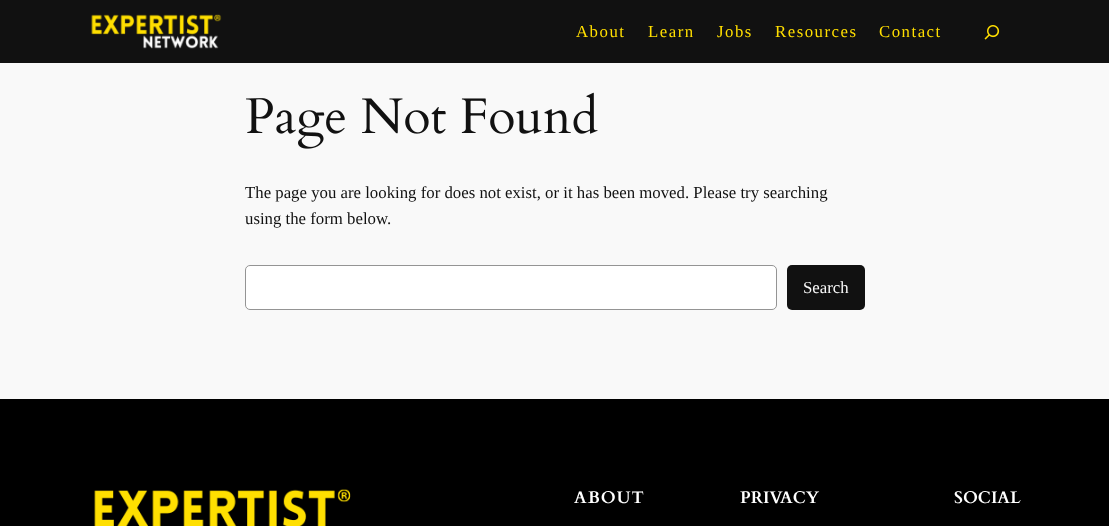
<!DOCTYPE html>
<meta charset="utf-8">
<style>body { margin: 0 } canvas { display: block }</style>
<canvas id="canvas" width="1109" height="526"></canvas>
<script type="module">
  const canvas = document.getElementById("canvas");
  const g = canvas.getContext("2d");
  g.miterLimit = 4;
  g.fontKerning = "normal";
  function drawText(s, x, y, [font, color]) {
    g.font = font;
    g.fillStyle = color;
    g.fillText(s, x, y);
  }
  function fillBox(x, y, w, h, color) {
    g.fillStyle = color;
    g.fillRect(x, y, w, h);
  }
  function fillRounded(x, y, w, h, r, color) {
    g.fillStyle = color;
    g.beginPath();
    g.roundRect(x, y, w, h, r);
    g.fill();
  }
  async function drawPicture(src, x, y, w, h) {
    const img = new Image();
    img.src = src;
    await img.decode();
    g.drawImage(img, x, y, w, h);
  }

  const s1 = ["16.8px Liberation Serif", "#FFDE00"];
  const s2 = ["16.8px Liberation Serif", "#111111"];
  const s3 = ["16.8px Liberation Serif", "#F9F9F9"];
  const s4 = ["bold 16.8px Cardo", "#FFFFFF"];

  fillBox(0, 0, 1109, 526, "#F9F9F9");
  fillBox(0, 0, 1109, 63, "#111111");
  await drawPicture("pic1.png", 91, 14, 131, 35);
  g.letterSpacing = "1.5px";
  drawText("About", 576, 37, s1);
  drawText("Learn", 648, 37, s1);
  drawText("Jobs", 717, 37, s1);
  drawText("Resources", 775, 37, s1);
  drawText("Contact", 879, 37, s1);
  await drawPicture("pic2.png", 984, 25, 16, 15);
  await drawPicture("pic3.png", 246, 92, 352, 57);
  g.letterSpacing = "0px";
  drawText("The page you are looking for does not exist, or it has been moved. Please try searching", 245, 198, s2);
  drawText("using the form below.", 245, 224, s2);
  g.fillStyle = "#FFFFFF";
  g.beginPath();
  g.roundRect(245.5, 265.5, 531, 44, 4.5);
  g.fill();
  g.strokeStyle = "#949494";
  g.stroke();
  fillRounded(787, 265, 78, 45, 5, "#111111");
  drawText("Search", 803, 293, s3);
  fillBox(0, 399, 1109, 127, "#000000");
  await drawPicture("pic4.png", 94, 489, 257, 37);
  g.letterSpacing = "1px";
  drawText("ABOUT", 574, 503, s4);
  g.letterSpacing = "0px";
  drawText("PRIVACY", 740, 503, s4);
  drawText("SOCIAL", 954, 503, s4);
</script>
